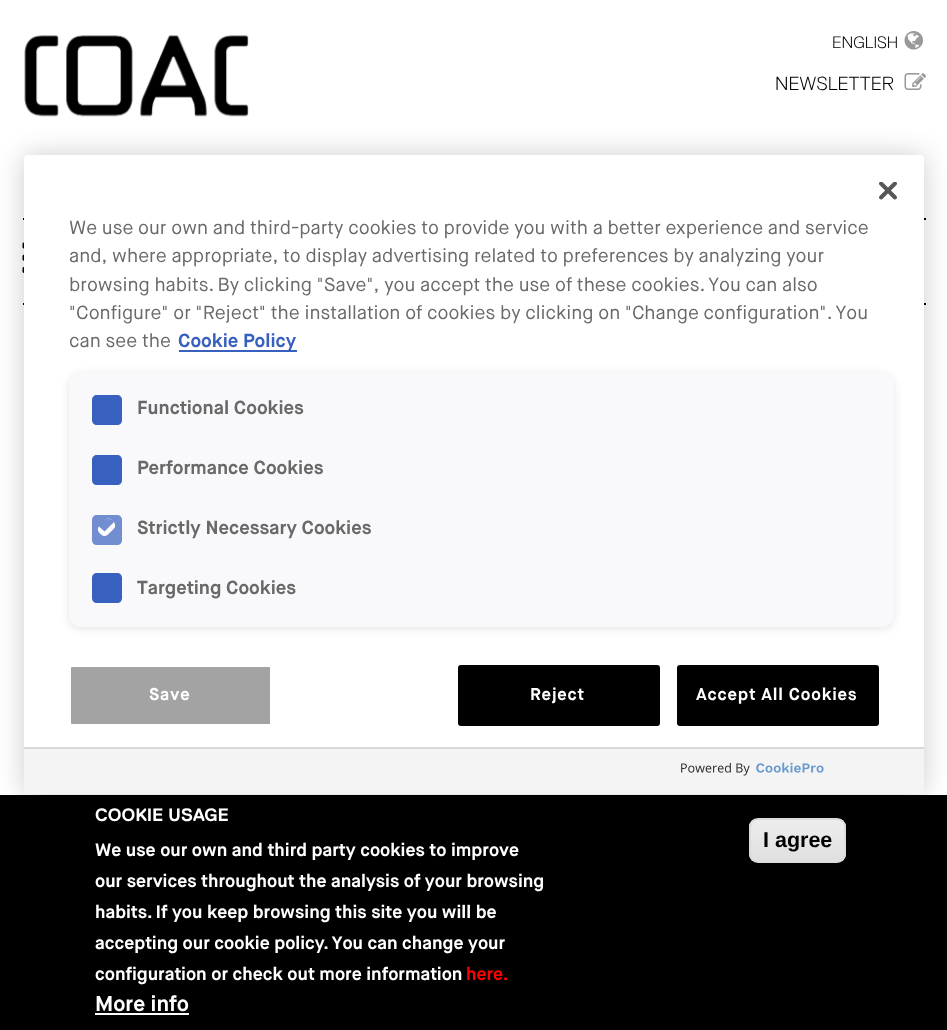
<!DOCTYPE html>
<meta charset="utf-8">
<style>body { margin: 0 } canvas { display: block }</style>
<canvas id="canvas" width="947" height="1030"></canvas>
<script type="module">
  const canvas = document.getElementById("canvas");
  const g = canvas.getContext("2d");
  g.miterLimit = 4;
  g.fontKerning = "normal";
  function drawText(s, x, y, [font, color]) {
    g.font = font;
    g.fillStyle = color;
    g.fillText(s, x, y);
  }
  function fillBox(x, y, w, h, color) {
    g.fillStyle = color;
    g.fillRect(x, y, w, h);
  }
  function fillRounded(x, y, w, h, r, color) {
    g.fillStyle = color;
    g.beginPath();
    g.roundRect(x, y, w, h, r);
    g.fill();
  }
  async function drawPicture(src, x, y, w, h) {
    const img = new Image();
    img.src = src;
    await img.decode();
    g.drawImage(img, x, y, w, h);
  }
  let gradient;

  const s1 = ["300 16.5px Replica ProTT", "#000000"];
  const s2 = ["300 18.9px Replica ProTT", "#000000"];
  const s3 = ["18.9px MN", "#696969"];
  const s4 = ["bold 18.9px MN", "#3860BE"];
  const s5 = ["bold 18.9px MN", "#696969"];
  const s6 = ["bold 17px MN", "#FFFFFF"];
  const s7 = ["bold 18px Replica ProTT", "#FFFFFF"];
  const s8 = ["bold 18px MN", "#FFFFFF"];
  const s9 = ["bold 18px MN", "#FF0000"];
  const s10 = ["bold 21.5px MN", "#FFFFFF"];
  const s11 = ["bold 21.5px Liberation Sans", "#000000"];

  fillBox(0, 0, 947, 1030, "#FFFFFF");
  await drawPicture("pic1.png", 24, 35, 225, 82);
  drawText("ENGLISH", 832, 48, s1);
  await drawPicture("pic2.png", 904, 31, 19, 19);
  drawText("NEWSLETTER", 775, 90, s2);
  await drawPicture("pic3.png", 904, 73, 22, 17);
  fillBox(23, 218, 903, 2, "#000000");
  await drawPicture("pic4.png", 22, 242, 2, 31);
  fillBox(23, 303, 903, 2, "#000000");
  fillBox(0, 795, 947, 235, "#000000");
  g.save();
  g.beginPath();
  g.roundRect(749, 818, 97, 45, 9);
  g.clip();
  gradient = g.createLinearGradient(797, 819, 797, 861);
  gradient.addColorStop(0.05, "#EDEDED");
  gradient.addColorStop(1, "#DFDFDF");
  g.fillStyle = gradient;
  g.fillRect(749, 819, 97, 42);
  g.restore();
  g.fillStyle = "#FFFFFF";
  g.beginPath();
  g.moveTo(758, 820);
  g.lineTo(837, 820);
  g.bezierCurveTo(841, 820, 844, 824, 844, 828);
  g.lineTo(844, 855);
  g.lineTo(844, 858);
  g.bezierCurveTo(844, 856, 845, 855, 845, 853);
  g.lineTo(845, 827);
  g.bezierCurveTo(845, 823, 841, 819, 837, 819);
  g.lineTo(758, 819);
  g.bezierCurveTo(754, 819, 750, 823, 750, 827);
  g.lineTo(750, 828);
  g.bezierCurveTo(750, 824, 753, 820, 758, 820);
  g.closePath();
  g.fill();
  g.beginPath();
  g.roundRect(750, 819, 95, 43, 8);
  g.strokeStyle = "#DCDCDC";
  g.lineWidth = 2;
  g.stroke();
  g.fillStyle = "rgba(0, 0, 0, 0.2)";
  g.filter = "blur(13.5px)";
  g.beginPath();
  g.roundRect(24, 155, 900, 639, 4);
  g.fill();
  g.filter = "none";
  fillRounded(24, 155, 900, 639, 4, "#FFFFFF");
  await drawPicture("pic5.png", 879, 182, 18, 18);
  drawText("We use our own and third-party cookies to provide you with a better experience and service", 69, 234, s3);
  drawText("and, where appropriate, to display advertising related to preferences by analyzing your", 69, 262, s3);
  drawText("browsing habits. By clicking \"Save\", you accept the use of these cookies. You can also", 69, 291, s3);
  drawText("\"Configure\" or \"Reject\" the installation of cookies by clicking on \"Change configuration\". You", 69, 319, s3);
  drawText("can see the", 69, 347, s3);
  fillBox(179, 350, 118, 2, "#3860BE");
  drawText("Cookie Policy", 178, 347, s4);
  g.fillStyle = "rgba(0, 0, 0, 0.1)";
  g.filter = "blur(4.5px)";
  g.beginPath();
  g.roundRect(69, 374, 825, 255, 12);
  g.fill();
  g.filter = "none";
  fillRounded(69, 372, 825, 255, 12, "#F9F9FC");
  g.fillStyle = "#3860BE";
  g.beginPath();
  g.moveTo(97, 395);
  g.lineTo(117, 395);
  g.bezierCurveTo(120, 395, 122, 397, 122, 400);
  g.lineTo(122, 420);
  g.bezierCurveTo(122, 423, 120, 425, 117, 425);
  g.lineTo(97, 425);
  g.bezierCurveTo(94, 425, 92, 423, 92, 420);
  g.lineTo(92, 400);
  g.bezierCurveTo(92, 397, 94, 395, 97, 395);
  g.closePath();
  g.fill();
  drawText("Functional Cookies", 137, 414, s5);
  g.fillStyle = "#3860BE";
  g.beginPath();
  g.moveTo(97, 455);
  g.lineTo(117, 455);
  g.bezierCurveTo(120, 455, 122, 457, 122, 460);
  g.lineTo(122, 480);
  g.bezierCurveTo(122, 483, 120, 485, 117, 485);
  g.lineTo(97, 485);
  g.bezierCurveTo(94, 485, 92, 483, 92, 480);
  g.lineTo(92, 460);
  g.bezierCurveTo(92, 457, 94, 455, 97, 455);
  g.closePath();
  g.fill();
  drawText("Performance Cookies", 137, 474, s5);
  g.fillStyle = "#728ED1";
  g.beginPath();
  g.moveTo(97, 515);
  g.lineTo(117, 515);
  g.bezierCurveTo(120, 515, 122, 517, 122, 520);
  g.lineTo(122, 540);
  g.bezierCurveTo(122, 543, 120, 545, 117, 545);
  g.lineTo(97, 545);
  g.bezierCurveTo(94, 545, 92, 543, 92, 540);
  g.lineTo(92, 520);
  g.bezierCurveTo(92, 517, 94, 515, 97, 515);
  g.closePath();
  g.fill();
  g.fillStyle = "#FDFDFE";
  g.beginPath();
  g.moveTo(99, 526.5);
  g.lineTo(105.5, 520);
  g.bezierCurveTo(109.5, 516, 116.5, 522.5, 115, 527);
  g.bezierCurveTo(114, 529, 109.5, 533, 107.5, 535);
  g.bezierCurveTo(105, 537, 102.5, 536, 100.5, 534);
  g.bezierCurveTo(98.5, 532, 96.5, 529, 99, 526.5);
  g.closePath();
  g.moveTo(99, 526.5);
  g.lineTo(105.5, 520);
  g.bezierCurveTo(107, 518, 110, 518, 112, 520);
  g.lineTo(114, 522);
  g.lineTo(104.5, 531.5);
  g.closePath();
  g.fill("evenodd");
  drawText("Strictly Necessary Cookies", 137, 534, s5);
  g.fillStyle = "#3860BE";
  g.beginPath();
  g.moveTo(97, 573);
  g.lineTo(117, 573);
  g.bezierCurveTo(120, 573, 122, 575, 122, 578);
  g.lineTo(122, 598);
  g.bezierCurveTo(122, 601, 120, 603, 117, 603);
  g.lineTo(97, 603);
  g.bezierCurveTo(94, 603, 92, 601, 92, 598);
  g.lineTo(92, 578);
  g.bezierCurveTo(92, 575, 94, 573, 97, 573);
  g.closePath();
  g.fill();
  drawText("Targeting Cookies", 137, 594, s5);
  g.fillStyle = "#A3A3A3";
  g.beginPath();
  g.roundRect(70, 666, 201, 59, 2);
  g.fill();
  g.strokeStyle = "#FFFFFF";
  g.stroke();
  g.letterSpacing = "0.8px";
  drawText("Save", 149, 700, s6);
  g.fillStyle = "#000000";
  g.beginPath();
  g.roundRect(459, 666, 200, 59, 2);
  g.fill();
  g.strokeStyle = "#000000";
  g.stroke();
  drawText("Reject", 530, 700, s6);
  g.fillStyle = "#000000";
  g.beginPath();
  g.roundRect(678, 666, 200, 59, 2);
  g.fill();
  g.stroke();
  drawText("Accept All Cookies", 696, 700, s6);
  g.fillStyle = "#F4F4F4";
  g.beginPath();
  g.roundRect(24, 747, 900, 47, [0, 0, 4, 4]);
  g.fill();
  fillBox(24, 747, 900, 2, "#D8D8D8");
  await drawPicture("pic6.png", 681, 762, 143, 14);
  g.letterSpacing = "0px";
  drawText("COOKIE USAGE", 95, 821, s7);
  drawText("We use our own and third party cookies to improve", 95, 856, s8);
  drawText("our services throughout the analysis of your browsing", 95, 887, s8);
  drawText("habits. If you keep browsing this site you will be", 95, 918, s8);
  drawText("accepting our cookie policy. You can change your", 95, 949, s8);
  drawText("configuration or check out more information", 95, 980, s8);
  drawText("here.", 466, 980, s9);
  drawText("More info", 95, 1011, s10);
  fillBox(95, 1013, 94, 2, "#FFFFFF");
  drawText("I agree", 763, 847, s11);
</script>
